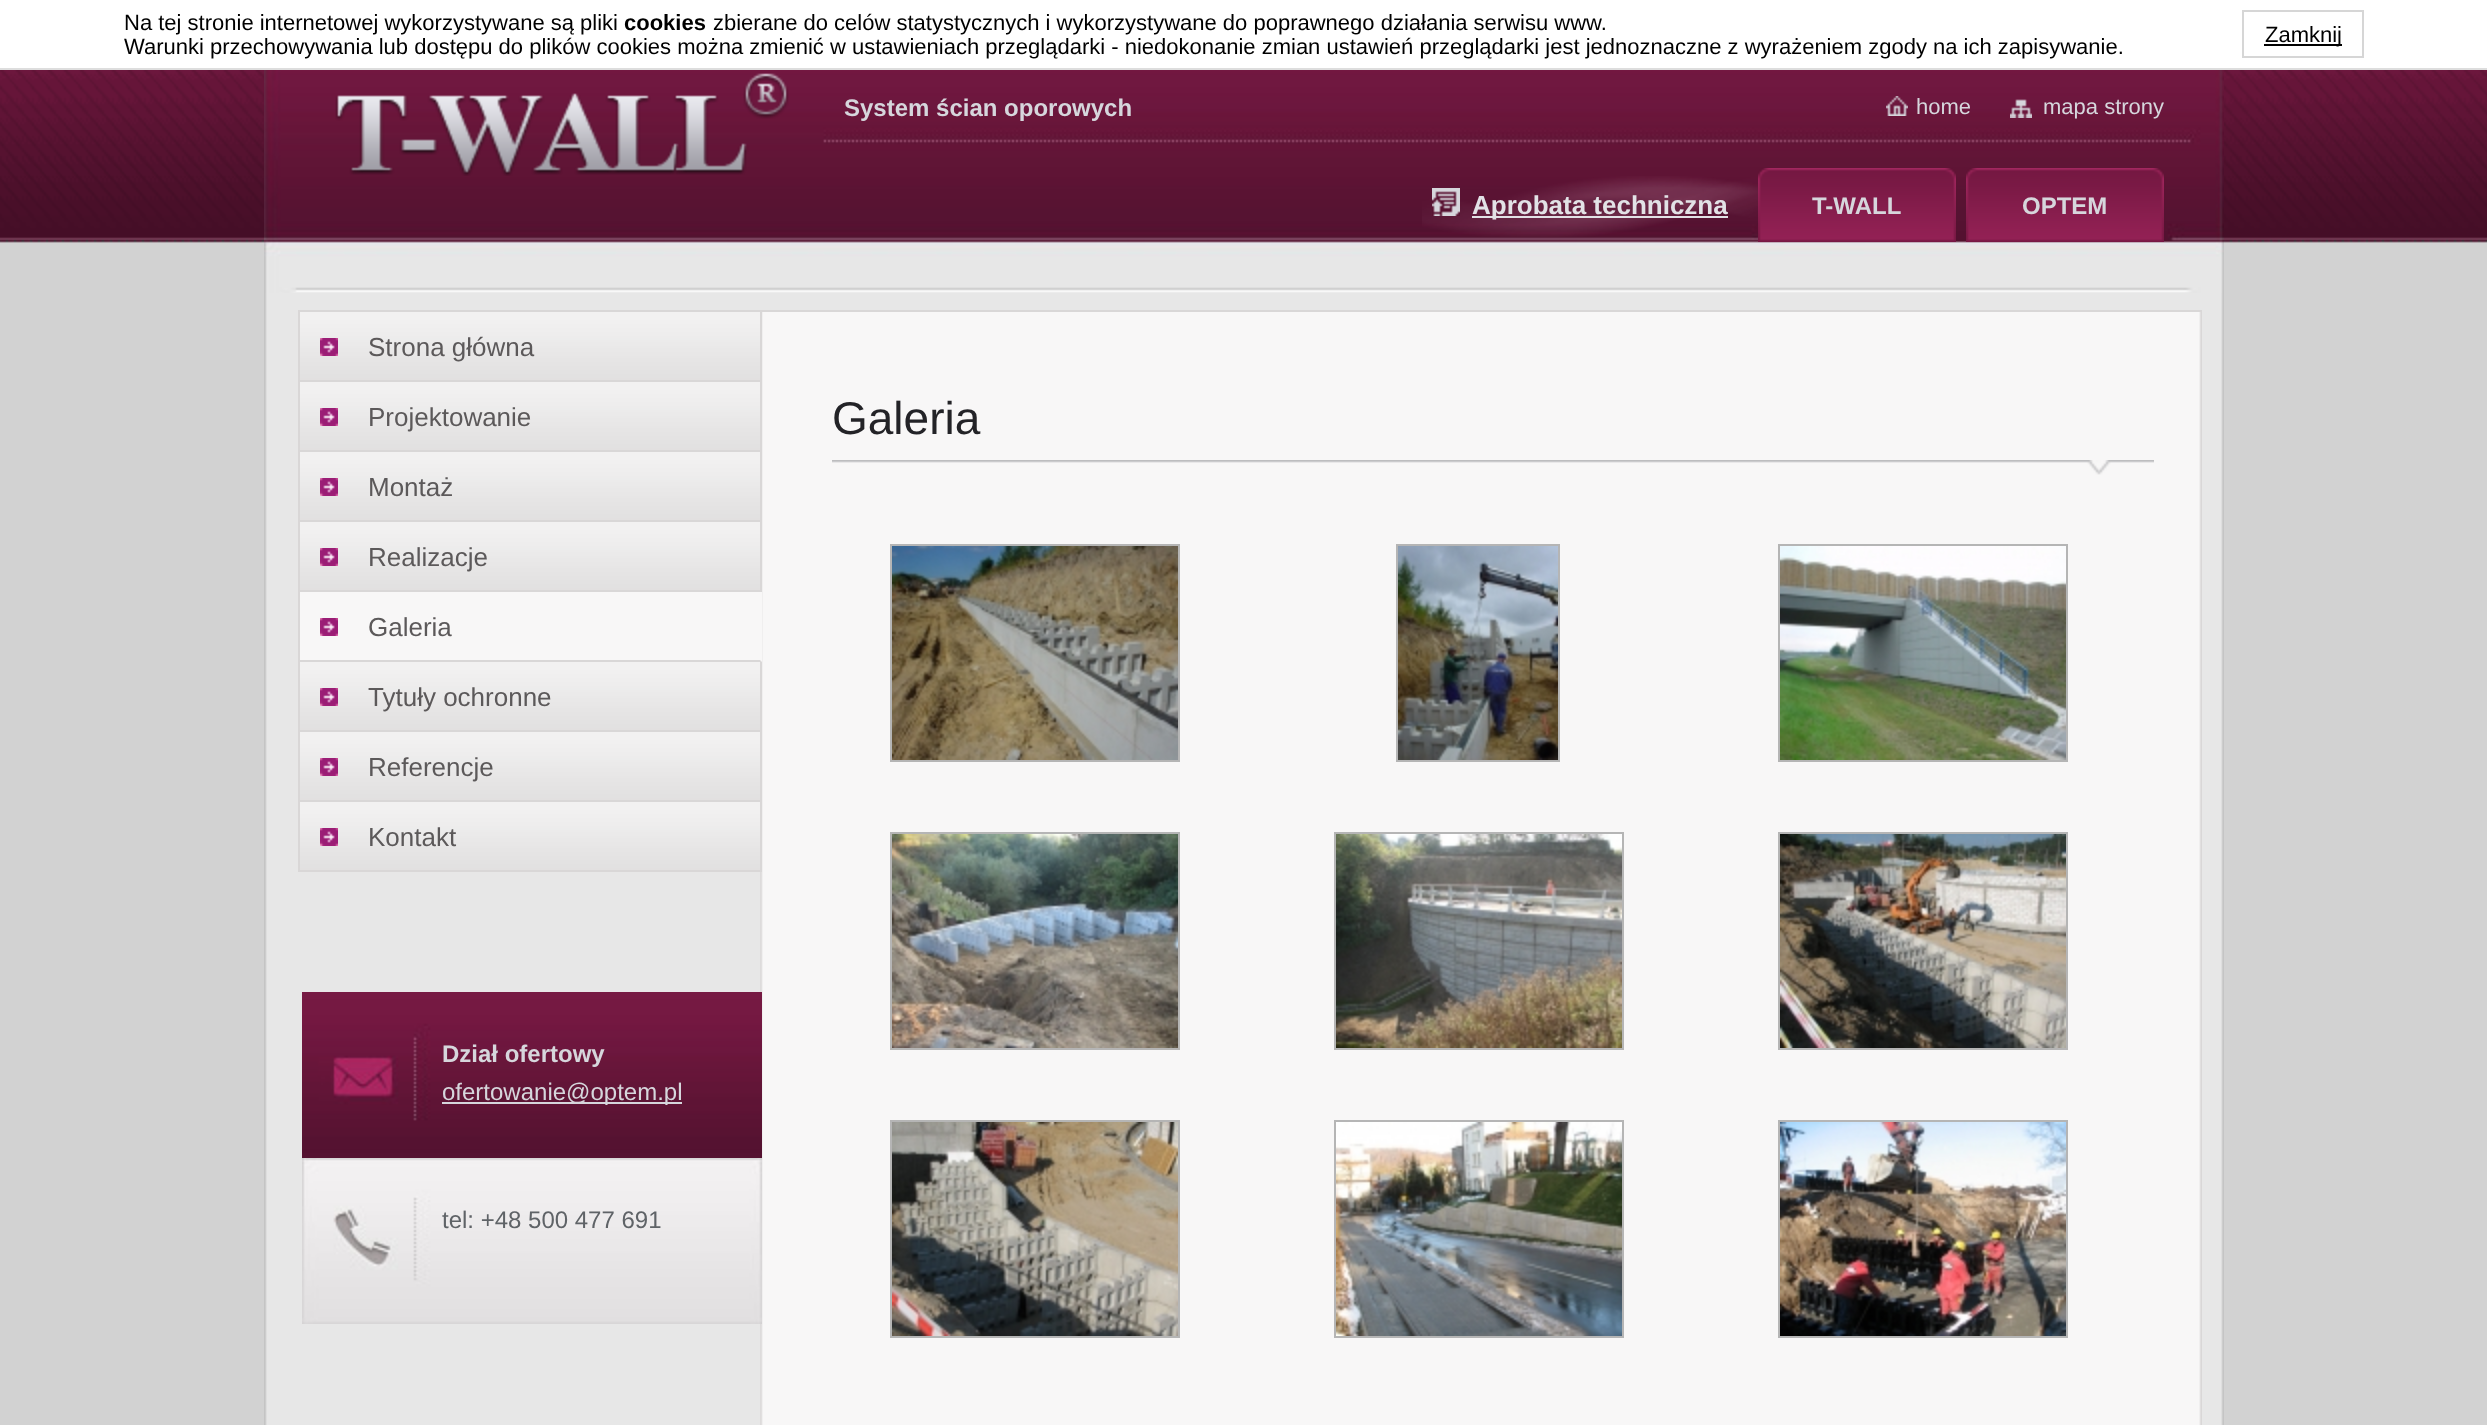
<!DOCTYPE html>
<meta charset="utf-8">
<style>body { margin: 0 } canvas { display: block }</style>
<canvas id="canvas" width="2487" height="1425"></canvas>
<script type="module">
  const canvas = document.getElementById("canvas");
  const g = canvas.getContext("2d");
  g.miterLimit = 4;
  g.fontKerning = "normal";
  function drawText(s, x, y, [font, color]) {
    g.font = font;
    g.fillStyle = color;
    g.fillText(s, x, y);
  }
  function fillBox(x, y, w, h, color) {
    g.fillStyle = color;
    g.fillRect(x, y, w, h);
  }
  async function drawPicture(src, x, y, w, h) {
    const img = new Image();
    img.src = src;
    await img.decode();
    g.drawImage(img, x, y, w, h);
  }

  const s1 = ["22px Liberation Sans", "#000000"];
  const s2 = ["bold 22px Liberation Sans", "#000000"];
  const s3 = ["bold 24px Liberation Sans", "#D6D6DC"];
  const s4 = ["22px Liberation Sans", "#D6D6DC"];
  const s5 = ["bold 26px Liberation Sans", "#E2E2E6"];
  const s6 = ["26px Liberation Sans", "#5C595A"];
  const s7 = ["24px Liberation Sans", "#D6D6DC"];
  const s8 = ["24px Liberation Sans", "#5F6367"];
  const s9 = ["46px Liberation Sans", "#232327"];

  fillBox(0, 0, 2487, 1425, "#D2D2D2");
  await drawPicture("pic1.png", 0, 70, 2487, 173);
  fillBox(0, 0, 2487, 68, "#FFFFFF");
  fillBox(0, 68, 2487, 2, "#DDDDDD");
  drawText("Na tej stronie internetowej wykorzystywane są pliki", 124, 30, s1);
  drawText("cookies", 624, 30, s2);
  drawText("zbierane do celów statystycznych i wykorzystywane do poprawnego działania serwisu www.", 713, 30, s1);
  drawText("Warunki przechowywania lub dostępu do plików cookies można zmienić w ustawieniach przeglądarki - niedokonanie zmian ustawień przeglądarki jest jednoznaczne z wyrażeniem zgody na ich zapisywanie.", 124, 54, s1);
  g.strokeStyle = "#D6D6D6";
  g.lineWidth = 2;
  g.strokeRect(2243, 11, 120, 46);
  fillBox(2264, 44, 78, 2, "#000000");
  drawText("Zamknij", 2265, 42, s1);
  await drawPicture("pic2.png", 264, 293, 1960, 1132);
  await drawPicture("pic3.png", 264, 70, 1960, 223);
  await drawPicture("pic4.png", 335, 73, 454, 103);
  drawText("System ścian oporowych", 844, 116, s3);
  await drawPicture("pic5.png", 1886, 96, 22, 20);
  drawText("home", 1916, 114, s4);
  await drawPicture("pic6.png", 2010, 99, 22, 19);
  drawText("mapa strony", 2043, 114, s4);
  await drawPicture("pic7.png", 1422, 176, 336, 61);
  await drawPicture("pic8.png", 1432, 188, 28, 28);
  fillBox(1472, 216, 256, 2, "#E2E2E6");
  drawText("Aprobata techniczna", 1472, 214, s5);
  await drawPicture("pic9.png", 1758, 168, 198, 74);
  drawText("T-WALL", 1812, 214, s3);
  await drawPicture("pic10.png", 1966, 168, 198, 74);
  drawText("OPTEM", 2022, 214, s3);
  await drawPicture("pic11.png", 760, 312, 1442, 1113);
  fillBox(298, 310, 1904, 2, "#D9D7D7");
  await drawPicture("pic12.png", 300, 312, 460, 68);
  await drawPicture("pic13.png", 320, 338, 18, 18);
  fillBox(760, 312, 2, 280, "#D9D7D7");
  fillBox(298, 380, 464, 2, "#D9D7D7");
  fillBox(298, 312, 2, 70, "#D9D7D7");
  drawText("Strona główna", 368, 356, s6);
  await drawPicture("pic12.png", 300, 382, 460, 68);
  await drawPicture("pic13.png", 320, 408, 18, 18);
  fillBox(298, 450, 464, 2, "#D9D7D7");
  fillBox(298, 382, 2, 70, "#D9D7D7");
  drawText("Projektowanie", 368, 426, s6);
  await drawPicture("pic12.png", 300, 452, 460, 68);
  await drawPicture("pic13.png", 320, 478, 18, 18);
  fillBox(298, 520, 464, 2, "#D9D7D7");
  fillBox(298, 452, 2, 70, "#D9D7D7");
  drawText("Montaż", 368, 496, s6);
  await drawPicture("pic12.png", 300, 522, 460, 68);
  await drawPicture("pic13.png", 320, 548, 18, 18);
  fillBox(298, 590, 464, 2, "#D9D7D7");
  fillBox(298, 522, 2, 70, "#D9D7D7");
  drawText("Realizacje", 368, 566, s6);
  fillBox(300, 592, 462, 70, "#F8F7F7");
  await drawPicture("pic13.png", 320, 618, 18, 18);
  g.fillStyle = "#D9D7D7";
  g.beginPath();
  g.moveTo(762, 662);
  g.lineTo(298, 662);
  g.lineTo(300, 660);
  g.lineTo(760, 660);
  g.closePath();
  g.fill();
  fillBox(298, 592, 2, 70, "#D9D7D7");
  drawText("Galeria", 368, 636, s6);
  await drawPicture("pic12.png", 300, 662, 460, 68);
  await drawPicture("pic13.png", 320, 688, 18, 18);
  fillBox(760, 662, 2, 210, "#D9D7D7");
  fillBox(298, 730, 464, 2, "#D9D7D7");
  fillBox(298, 662, 2, 70, "#D9D7D7");
  drawText("Tytuły ochronne", 368, 706, s6);
  await drawPicture("pic12.png", 300, 732, 460, 68);
  await drawPicture("pic13.png", 320, 758, 18, 18);
  fillBox(298, 800, 464, 2, "#D9D7D7");
  fillBox(298, 732, 2, 70, "#D9D7D7");
  drawText("Referencje", 368, 776, s6);
  await drawPicture("pic12.png", 300, 802, 460, 68);
  await drawPicture("pic13.png", 320, 828, 18, 18);
  fillBox(298, 870, 464, 2, "#D9D7D7");
  fillBox(298, 802, 2, 70, "#D9D7D7");
  drawText("Kontakt", 368, 846, s6);
  await drawPicture("pic14.png", 302, 992, 460, 166);
  drawText("Dział ofertowy", 442, 1062, s3);
  fillBox(442, 1102, 240, 2, "#D6D6DC");
  drawText("ofertowanie@optem.pl", 442, 1100, s7);
  await drawPicture("pic15.png", 302, 1158, 460, 166);
  drawText("tel: +48 500 477 691", 442, 1228, s8);
  await drawPicture("pic16.png", 832, 460, 1322, 15);
  drawText("Galeria", 832, 434, s9);
  g.strokeStyle = "#B5B5B5";
  g.strokeRect(891, 545, 288, 216);
  await drawPicture("pic17.png", 892, 546, 286, 214);
  g.strokeRect(1397, 545, 162, 216);
  await drawPicture("pic18.png", 1398, 546, 160, 214);
  g.strokeRect(1779, 545, 288, 216);
  await drawPicture("pic19.png", 1780, 546, 286, 214);
  g.strokeRect(891, 833, 288, 216);
  await drawPicture("pic20.png", 892, 834, 286, 214);
  g.strokeRect(1335, 833, 288, 216);
  await drawPicture("pic21.png", 1336, 834, 286, 214);
  g.strokeRect(1779, 833, 288, 216);
  await drawPicture("pic22.png", 1780, 834, 286, 214);
  g.strokeRect(891, 1121, 288, 216);
  await drawPicture("pic23.png", 892, 1122, 286, 214);
  g.strokeRect(1335, 1121, 288, 216);
  await drawPicture("pic24.png", 1336, 1122, 286, 214);
  g.strokeRect(1779, 1121, 288, 216);
  await drawPicture("pic25.png", 1780, 1122, 286, 214);
</script>
